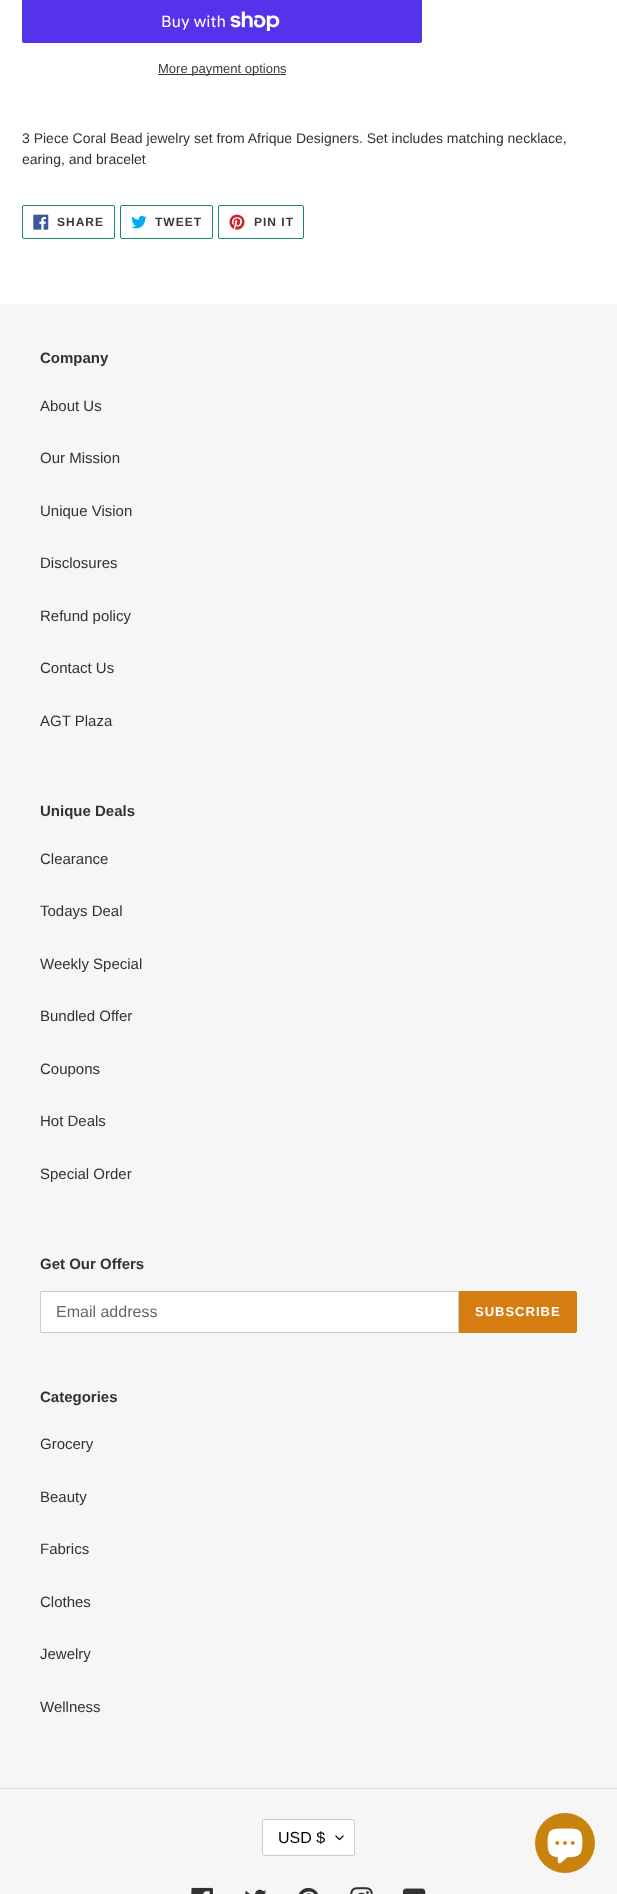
<!DOCTYPE html>
<meta charset="utf-8">
<style>body { margin: 0 } canvas { display: block }</style>
<canvas id="canvas" width="617" height="1894"></canvas>
<script type="module">
  const canvas = document.getElementById("canvas");
  const g = canvas.getContext("2d");
  g.miterLimit = 4;
  g.fontKerning = "normal";
  function drawText(s, x, y, [font, color]) {
    g.font = font;
    g.fillStyle = color;
    g.fillText(s, x, y);
  }
  function fillBox(x, y, w, h, color) {
    g.fillStyle = color;
    g.fillRect(x, y, w, h);
  }
  function fillRounded(x, y, w, h, r, color) {
    g.fillStyle = color;
    g.beginPath();
    g.roundRect(x, y, w, h, r);
    g.fill();
  }
  async function drawPicture(src, x, y, w, h) {
    const img = new Image();
    img.src = src;
    await img.decode();
    g.drawImage(img, x, y, w, h);
  }

  const s1 = ["16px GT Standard", "#FFFFFF"];
  const s2 = ["13px Liberation Sans", "#3A3A3A"];
  const s3 = ["14px Liberation Sans", "#333232"];
  const s4 = ["bold 12px Liberation Sans", "#3A3A3A"];
  const s5 = ["bold 15px Liberation Sans", "#333232"];
  const s6 = ["15px Liberation Sans", "#333232"];
  const s7 = ["16px Liberation Sans", "#666666"];
  const s8 = ["bold 13px Liberation Sans", "#FFFFFF"];
  const s9 = ["16px Liberation Sans", "#000000"];

  fillBox(0, 0, 617, 1894, "#FFFFFF");
  fillRounded(22, -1, 400, 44, 2, "#5433EB");
  drawText("Buy with", 161, 27, s1);
  await drawPicture("pic1.png", 230, 11, 50, 20);
  fillBox(158, 74, 128, 1, "#3A3A3A");
  drawText("More payment options", 158, 73, s2);
  drawText("3 Piece Coral Bead jewelry set from Afrique Designers. Set includes matching necklace,", 22, 143, s3);
  drawText("earing, and bracelet", 22, 164, s3);
  g.beginPath();
  g.roundRect(22.5, 205.5, 92, 33, 1.5);
  g.strokeStyle = "#1E8570";
  g.stroke();
  await drawPicture("pic2.png", 33, 214, 16, 16);
  g.letterSpacing = "1px";
  drawText("SHARE", 57, 226, s4);
  g.beginPath();
  g.roundRect(120.5, 205.5, 92, 33, 1.5);
  g.stroke();
  await drawPicture("pic3.png", 131, 215, 16, 14);
  drawText("TWEET", 155, 226, s4);
  g.beginPath();
  g.roundRect(218.5, 205.5, 85, 33, 1.5);
  g.stroke();
  await drawPicture("pic4.png", 229, 214, 16, 16);
  drawText("PIN IT", 254, 226, s4);
  fillBox(0, 304, 617, 1590, "#F6F6F6");
  g.letterSpacing = "0px";
  drawText("Company", 40, 363, s5);
  drawText("About Us", 40, 411, s6);
  drawText("Our Mission", 40, 463, s6);
  drawText("Unique Vision", 40, 516, s6);
  drawText("Disclosures", 40, 568, s6);
  drawText("Refund policy", 40, 621, s6);
  drawText("Contact Us", 40, 673, s6);
  drawText("AGT Plaza", 40, 726, s6);
  drawText("Unique Deals", 40, 816, s5);
  drawText("Clearance", 40, 864, s6);
  drawText("Todays Deal", 40, 916, s6);
  drawText("Weekly Special", 40, 969, s6);
  drawText("Bundled Offer", 40, 1021, s6);
  drawText("Coupons", 40, 1074, s6);
  drawText("Hot Deals", 40, 1126, s6);
  drawText("Special Order", 40, 1179, s6);
  drawText("Get Our Offers", 40, 1269, s5);
  g.fillStyle = "#FFFFFF";
  g.beginPath();
  g.roundRect(40.5, 1291.5, 418, 41, [1.5, 0, 0, 1.5]);
  g.fill();
  g.strokeStyle = "#CCCCCC";
  g.stroke();
  drawText("Email address", 56, 1317, s7);
  g.fillStyle = "#D57D11";
  g.beginPath();
  g.roundRect(459, 1291, 118, 42, [0, 2, 2, 0]);
  g.fill();
  g.letterSpacing = "1px";
  drawText("SUBSCRIBE", 475, 1316, s8);
  g.letterSpacing = "0px";
  drawText("Categories", 40, 1402, s5);
  drawText("Grocery", 40, 1449, s6);
  drawText("Beauty", 40, 1502, s6);
  drawText("Fabrics", 40, 1554, s6);
  drawText("Clothes", 40, 1607, s6);
  drawText("Jewelry", 40, 1659, s6);
  drawText("Wellness", 40, 1712, s6);
  fillBox(0, 1788, 617, 1, "#DDDDDD");
  fillRounded(262, 1819, 93, 37, 2, "#FFFFFF");
  await drawPicture("pic5.png", 335, 1835, 9, 6);
  g.beginPath();
  g.roundRect(262.5, 1819.5, 92, 36, 1.5);
  g.stroke();
  drawText("USD $", 278, 1843, s9);
  await drawPicture("pic6.png", 191, 1887, 22, 7);
  await drawPicture("pic7.png", 245, 1889, 22, 5);
  await drawPicture("pic8.png", 298, 1887, 20, 7);
  await drawPicture("pic9.png", 350, 1887, 23, 7);
  await drawPicture("pic10.png", 403, 1888, 23, 6);
  g.fillStyle = "#C8830F";
  g.beginPath();
  g.arc(565, 1843, 30, 0, Math.PI * 2);
  g.fill();
  await drawPicture("pic11.png", 547, 1828, 36, 36);
</script>
